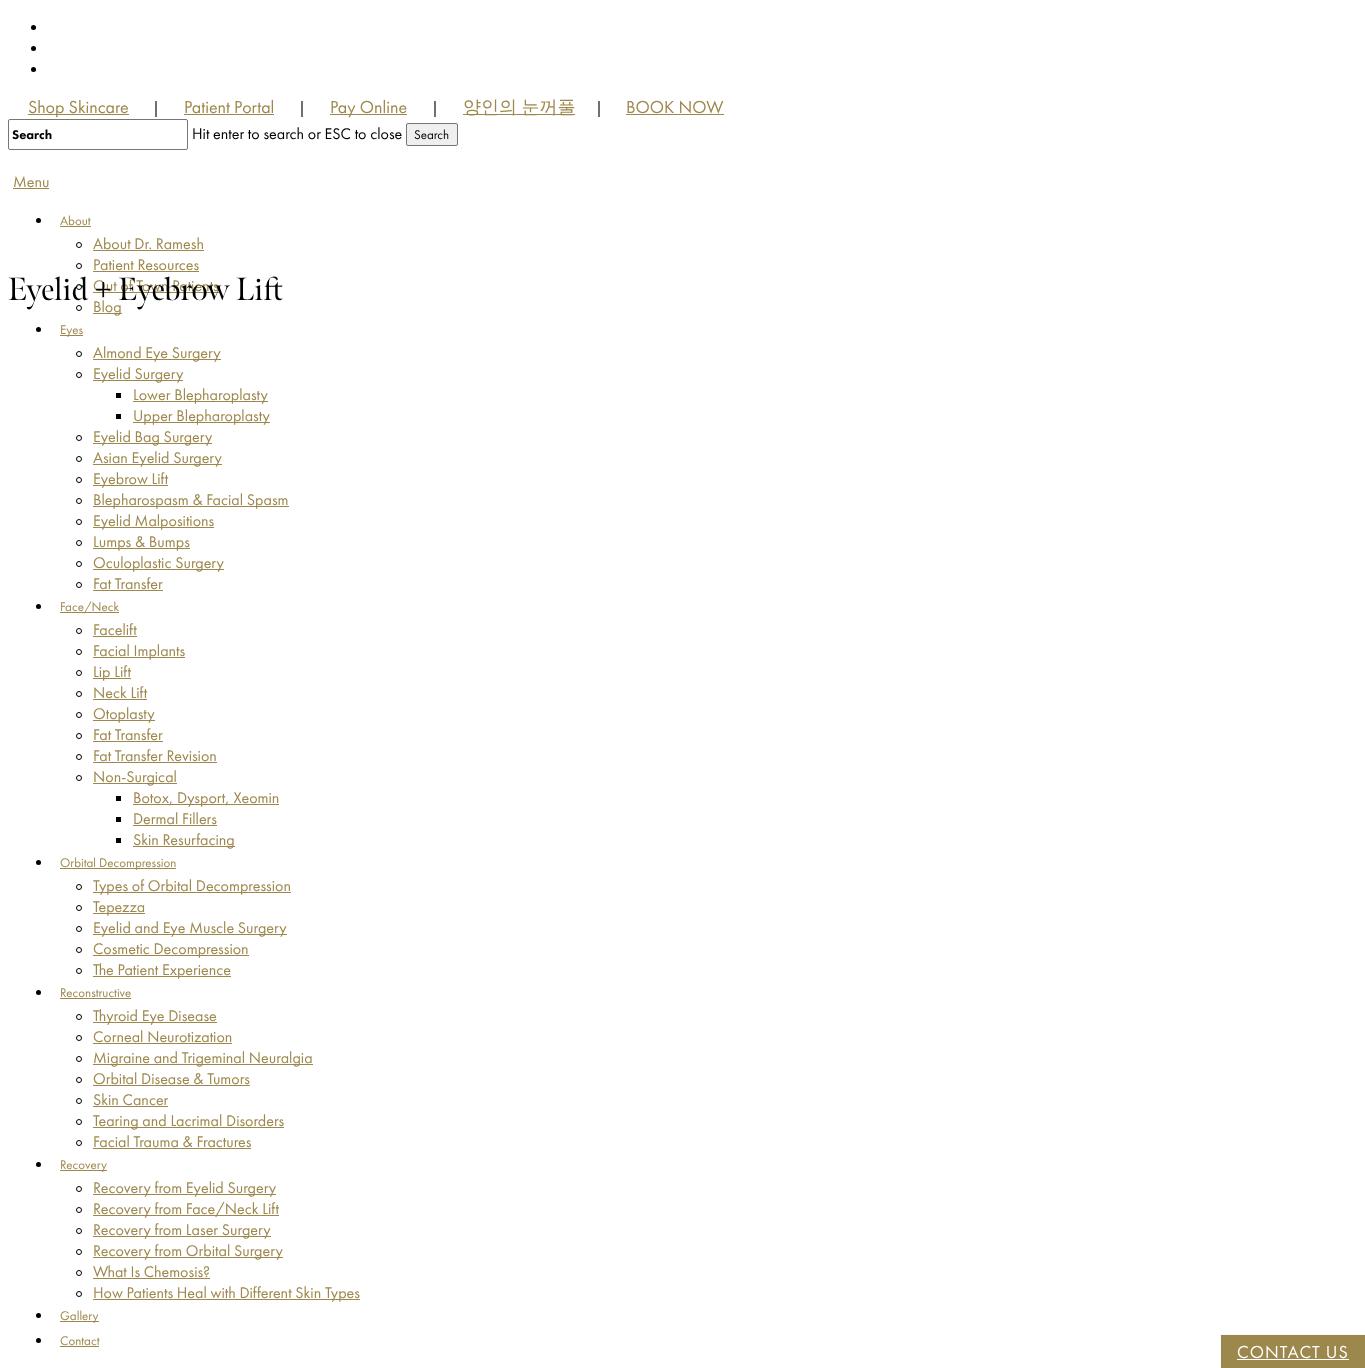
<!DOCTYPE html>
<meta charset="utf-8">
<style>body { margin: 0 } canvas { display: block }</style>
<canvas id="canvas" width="1365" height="1368"></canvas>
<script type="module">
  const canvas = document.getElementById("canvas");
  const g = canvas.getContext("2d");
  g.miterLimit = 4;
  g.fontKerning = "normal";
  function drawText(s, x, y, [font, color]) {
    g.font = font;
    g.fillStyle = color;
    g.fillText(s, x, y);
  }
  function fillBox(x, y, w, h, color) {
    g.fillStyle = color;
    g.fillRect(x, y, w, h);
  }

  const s1 = ["18px Futura PT", "#9D874C"];
  const s2 = ["16px Futura PT", "#000000"];
  const s3 = ["500 18px WenQuanYi Zen Hei", "#9D874C"];
  const s4 = ["900 13px Futura PT", "#000000"];
  const s5 = ["13px Futura PT", "#000000"];
  const s6 = ["16px Futura PT", "#9D874C"];
  const s7 = ["13px Futura PT", "#9D874C"];
  const s8 = ["32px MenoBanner", "#000000"];
  const s9 = ["18px Futura PT", "#FFFFFF"];

  fillBox(0, 0, 1365, 1368, "#FFFFFF");
  g.fillStyle = "#000000";
  g.beginPath();
  g.arc(33.5, 27.5, 2.5, 0, Math.PI * 2);
  g.fill();
  g.beginPath();
  g.arc(33.5, 48.5, 2.5, 0, Math.PI * 2);
  g.fill();
  g.beginPath();
  g.arc(33.5, 69.5, 2.5, 0, Math.PI * 2);
  g.fill();
  fillBox(28, 114, 101, 1, "#9D874C");
  drawText("Shop Skincare", 28, 113, s1);
  drawText("|", 152, 113, s2);
  drawText("Patient Portal", 184, 113, s1);
  fillBox(184, 114, 90, 1, "#9D874C");
  drawText("|", 298, 113, s2);
  fillBox(330, 114, 77, 1, "#9D874C");
  drawText("Pay Online", 330, 113, s1);
  drawText("|", 431, 113, s2);
  fillBox(463, 114, 112, 1, "#9D874C");
  g.wordSpacing = "-1px";
  drawText("양인의 눈꺼풀", 463, 113, s3);
  g.wordSpacing = "0px";
  drawText("|", 595, 113, s2);
  drawText("BOOK NOW", 626, 113, s1);
  fillBox(626, 114, 98, 1, "#9D874C");
  g.beginPath();
  g.roundRect(8.5, 119.5, 179, 30, 1.5);
  g.strokeStyle = "#767676";
  g.stroke();
  drawText("Search", 12, 139, s4);
  drawText("Hit enter to search or ESC to close", 192, 139, s2);
  g.fillStyle = "#EFEFEF";
  g.beginPath();
  g.roundRect(406.5, 123.5, 51, 22, 1.5);
  g.fill();
  g.stroke();
  drawText("Search", 414, 139, s5);
  drawText("Menu", 13, 187, s6);
  fillBox(13, 188, 36, 1, "#9D874C");
  g.fillStyle = "#000000";
  g.beginPath();
  g.arc(38.5, 220.5, 2.5, 0, Math.PI * 2);
  g.fill();
  drawText("About", 60, 225, s7);
  fillBox(60, 226, 31, 1, "#9D874C");
  g.beginPath();
  g.arc(79, 245, 2.5, 0, Math.PI * 2);
  g.strokeStyle = "#000000";
  g.stroke();
  drawText("About Dr. Ramesh", 93, 249, s6);
  fillBox(93, 250, 111, 1, "#9D874C");
  g.beginPath();
  g.arc(79, 266, 2.5, 0, Math.PI * 2);
  g.stroke();
  drawText("Patient Resources", 93, 270, s6);
  fillBox(93, 271, 106, 1, "#9D874C");
  g.beginPath();
  g.arc(79, 287, 2.5, 0, Math.PI * 2);
  g.stroke();
  drawText("Out of Town Patients", 93, 291, s6);
  fillBox(93, 292, 126, 1, "#9D874C");
  g.beginPath();
  g.arc(79, 308, 2.5, 0, Math.PI * 2);
  g.stroke();
  fillBox(93, 313, 29, 1, "#9D874C");
  drawText("Blog", 93, 312, s6);
  g.fillStyle = "#000000";
  g.beginPath();
  g.arc(38.5, 329.5, 2.5, 0, Math.PI * 2);
  g.fill();
  fillBox(60, 335, 23, 1, "#9D874C");
  drawText("Eyes", 60, 334, s7);
  g.beginPath();
  g.arc(79, 354, 2.5, 0, Math.PI * 2);
  g.stroke();
  fillBox(93, 359, 128, 1, "#9D874C");
  drawText("Almond Eye Surgery", 93, 358, s6);
  g.beginPath();
  g.arc(79, 375, 2.5, 0, Math.PI * 2);
  g.stroke();
  fillBox(93, 380, 90, 1, "#9D874C");
  drawText("Eyelid Surgery", 93, 379, s6);
  fillBox(116, 393, 5, 5, "#000000");
  fillBox(133, 401, 135, 1, "#9D874C");
  drawText("Lower Blepharoplasty", 133, 400, s6);
  fillBox(116, 414, 5, 5, "#000000");
  fillBox(133, 422, 137, 1, "#9D874C");
  drawText("Upper Blepharoplasty", 133, 421, s6);
  g.beginPath();
  g.arc(79, 438, 2.5, 0, Math.PI * 2);
  g.stroke();
  fillBox(93, 443, 119, 1, "#9D874C");
  drawText("Eyelid Bag Surgery", 93, 442, s6);
  g.beginPath();
  g.arc(79, 459, 2.5, 0, Math.PI * 2);
  g.stroke();
  fillBox(93, 464, 129, 1, "#9D874C");
  drawText("Asian Eyelid Surgery", 93, 463, s6);
  g.beginPath();
  g.arc(79, 480, 2.5, 0, Math.PI * 2);
  g.stroke();
  fillBox(93, 485, 75, 1, "#9D874C");
  drawText("Eyebrow Lift", 93, 484, s6);
  g.beginPath();
  g.arc(79, 501, 2.5, 0, Math.PI * 2);
  g.stroke();
  fillBox(93, 506, 196, 1, "#9D874C");
  drawText("Blepharospasm & Facial Spasm", 93, 505, s6);
  g.beginPath();
  g.arc(79, 522, 2.5, 0, Math.PI * 2);
  g.stroke();
  fillBox(93, 527, 121, 1, "#9D874C");
  drawText("Eyelid Malpositions", 93, 526, s6);
  g.beginPath();
  g.arc(79, 543, 2.5, 0, Math.PI * 2);
  g.stroke();
  fillBox(93, 548, 97, 1, "#9D874C");
  drawText("Lumps & Bumps", 93, 547, s6);
  g.beginPath();
  g.arc(79, 564, 2.5, 0, Math.PI * 2);
  g.stroke();
  fillBox(93, 569, 131, 1, "#9D874C");
  drawText("Oculoplastic Surgery", 93, 568, s6);
  g.beginPath();
  g.arc(79, 585, 2.5, 0, Math.PI * 2);
  g.stroke();
  drawText("Fat Transfer", 93, 589, s6);
  fillBox(93, 590, 70, 1, "#9D874C");
  g.fillStyle = "#000000";
  g.beginPath();
  g.arc(38.5, 606.5, 2.5, 0, Math.PI * 2);
  g.fill();
  fillBox(60, 612, 59, 1, "#9D874C");
  drawText("Face/Neck", 60, 611, s7);
  g.beginPath();
  g.arc(79, 631, 2.5, 0, Math.PI * 2);
  g.stroke();
  drawText("Facelift", 93, 635, s6);
  fillBox(93, 636, 44, 1, "#9D874C");
  g.beginPath();
  g.arc(79, 652, 2.5, 0, Math.PI * 2);
  g.stroke();
  fillBox(93, 657, 92, 1, "#9D874C");
  drawText("Facial Implants", 93, 656, s6);
  g.beginPath();
  g.arc(79, 673, 2.5, 0, Math.PI * 2);
  g.stroke();
  fillBox(93, 678, 38, 1, "#9D874C");
  drawText("Lip Lift", 93, 677, s6);
  g.beginPath();
  g.arc(79, 694, 2.5, 0, Math.PI * 2);
  g.stroke();
  drawText("Neck Lift", 93, 698, s6);
  fillBox(93, 699, 54, 1, "#9D874C");
  g.beginPath();
  g.arc(79, 715, 2.5, 0, Math.PI * 2);
  g.stroke();
  fillBox(93, 720, 62, 1, "#9D874C");
  drawText("Otoplasty", 93, 719, s6);
  g.beginPath();
  g.arc(79, 736, 2.5, 0, Math.PI * 2);
  g.stroke();
  drawText("Fat Transfer", 93, 740, s6);
  fillBox(93, 741, 70, 1, "#9D874C");
  g.beginPath();
  g.arc(79, 757, 2.5, 0, Math.PI * 2);
  g.stroke();
  drawText("Fat Transfer Revision", 93, 761, s6);
  fillBox(93, 762, 124, 1, "#9D874C");
  g.beginPath();
  g.arc(79, 778, 2.5, 0, Math.PI * 2);
  g.stroke();
  fillBox(93, 783, 84, 1, "#9D874C");
  drawText("Non-Surgical", 93, 782, s6);
  fillBox(116, 796, 5, 5, "#000000");
  fillBox(133, 804, 146, 1, "#9D874C");
  drawText("Botox, Dysport, Xeomin", 133, 803, s6);
  fillBox(116, 817, 5, 5, "#000000");
  drawText("Dermal Fillers", 133, 824, s6);
  fillBox(133, 825, 84, 1, "#9D874C");
  fillBox(116, 838, 5, 5, "#000000");
  fillBox(133, 846, 102, 1, "#9D874C");
  drawText("Skin Resurfacing", 133, 845, s6);
  g.fillStyle = "#000000";
  g.beginPath();
  g.arc(38.5, 862.5, 2.5, 0, Math.PI * 2);
  g.fill();
  fillBox(60, 868, 116, 1, "#9D874C");
  drawText("Orbital Decompression", 60, 867, s7);
  g.beginPath();
  g.arc(79, 887, 2.5, 0, Math.PI * 2);
  g.stroke();
  fillBox(93, 892, 198, 1, "#9D874C");
  drawText("Types of Orbital Decompression", 93, 891, s6);
  g.beginPath();
  g.arc(79, 908, 2.5, 0, Math.PI * 2);
  g.stroke();
  fillBox(93, 913, 52, 1, "#9D874C");
  drawText("Tepezza", 93, 912, s6);
  g.beginPath();
  g.arc(79, 929, 2.5, 0, Math.PI * 2);
  g.stroke();
  fillBox(93, 934, 194, 1, "#9D874C");
  drawText("Eyelid and Eye Muscle Surgery", 93, 933, s6);
  g.beginPath();
  g.arc(79, 950, 2.5, 0, Math.PI * 2);
  g.stroke();
  fillBox(93, 955, 156, 1, "#9D874C");
  drawText("Cosmetic Decompression", 93, 954, s6);
  g.beginPath();
  g.arc(79, 971, 2.5, 0, Math.PI * 2);
  g.stroke();
  fillBox(93, 976, 138, 1, "#9D874C");
  drawText("The Patient Experience", 93, 975, s6);
  g.fillStyle = "#000000";
  g.beginPath();
  g.arc(38.5, 992.5, 2.5, 0, Math.PI * 2);
  g.fill();
  drawText("Reconstructive", 60, 997, s7);
  fillBox(60, 998, 71, 1, "#9D874C");
  g.beginPath();
  g.arc(79, 1017, 2.5, 0, Math.PI * 2);
  g.stroke();
  fillBox(93, 1022, 124, 1, "#9D874C");
  drawText("Thyroid Eye Disease", 93, 1021, s6);
  g.beginPath();
  g.arc(79, 1038, 2.5, 0, Math.PI * 2);
  g.stroke();
  drawText("Corneal Neurotization", 93, 1042, s6);
  fillBox(93, 1043, 139, 1, "#9D874C");
  g.beginPath();
  g.arc(79, 1059, 2.5, 0, Math.PI * 2);
  g.stroke();
  fillBox(93, 1064, 220, 1, "#9D874C");
  drawText("Migraine and Trigeminal Neuralgia", 93, 1063, s6);
  g.beginPath();
  g.arc(79, 1080, 2.5, 0, Math.PI * 2);
  g.stroke();
  drawText("Orbital Disease & Tumors", 93, 1084, s6);
  fillBox(93, 1085, 157, 1, "#9D874C");
  g.beginPath();
  g.arc(79, 1101, 2.5, 0, Math.PI * 2);
  g.stroke();
  drawText("Skin Cancer", 93, 1105, s6);
  fillBox(93, 1106, 75, 1, "#9D874C");
  g.beginPath();
  g.arc(79, 1122, 2.5, 0, Math.PI * 2);
  g.stroke();
  fillBox(93, 1127, 191, 1, "#9D874C");
  drawText("Tearing and Lacrimal Disorders", 93, 1126, s6);
  g.beginPath();
  g.arc(79, 1143, 2.5, 0, Math.PI * 2);
  g.stroke();
  drawText("Facial Trauma & Fractures", 93, 1147, s6);
  fillBox(93, 1148, 158, 1, "#9D874C");
  g.fillStyle = "#000000";
  g.beginPath();
  g.arc(38.5, 1164.5, 2.5, 0, Math.PI * 2);
  g.fill();
  fillBox(60, 1170, 47, 1, "#9D874C");
  drawText("Recovery", 60, 1169, s7);
  g.beginPath();
  g.arc(79, 1189, 2.5, 0, Math.PI * 2);
  g.stroke();
  fillBox(93, 1194, 183, 1, "#9D874C");
  drawText("Recovery from Eyelid Surgery", 93, 1193, s6);
  g.beginPath();
  g.arc(79, 1210, 2.5, 0, Math.PI * 2);
  g.stroke();
  fillBox(93, 1215, 186, 1, "#9D874C");
  drawText("Recovery from Face/Neck Lift", 93, 1214, s6);
  g.beginPath();
  g.arc(79, 1231, 2.5, 0, Math.PI * 2);
  g.stroke();
  fillBox(93, 1236, 178, 1, "#9D874C");
  drawText("Recovery from Laser Surgery", 93, 1235, s6);
  g.beginPath();
  g.arc(79, 1252, 2.5, 0, Math.PI * 2);
  g.stroke();
  fillBox(93, 1257, 190, 1, "#9D874C");
  drawText("Recovery from Orbital Surgery", 93, 1256, s6);
  g.beginPath();
  g.arc(79, 1273, 2.5, 0, Math.PI * 2);
  g.stroke();
  drawText("What Is Chemosis?", 93, 1277, s6);
  fillBox(93, 1278, 117, 1, "#9D874C");
  g.beginPath();
  g.arc(79, 1294, 2.5, 0, Math.PI * 2);
  g.stroke();
  fillBox(93, 1299, 267, 1, "#9D874C");
  drawText("How Patients Heal with Different Skin Types", 93, 1298, s6);
  g.fillStyle = "#000000";
  g.beginPath();
  g.arc(38.5, 1315.5, 2.5, 0, Math.PI * 2);
  g.fill();
  fillBox(60, 1321, 39, 1, "#9D874C");
  drawText("Gallery", 60, 1320, s7);
  g.fillStyle = "#000000";
  g.beginPath();
  g.arc(38.5, 1340.5, 2.5, 0, Math.PI * 2);
  g.fill();
  drawText("Contact", 60, 1345, s7);
  fillBox(60, 1346, 39, 1, "#9D874C");
  drawText("Eyelid + Eyebrow Lift", 8, 300, s8);
  fillBox(1221, 1335, 144, 33, "#9C874C");
  fillBox(1220, 1334, 145, 1, "#FAFAFA");
  fillBox(1220, 1334, 1, 34, "#FAFAFA");
  g.letterSpacing = "1px";
  drawText("CONTACT US", 1237, 1358, s9);
  fillBox(1237, 1359, 112, 1, "#FFFFFF");
</script>
